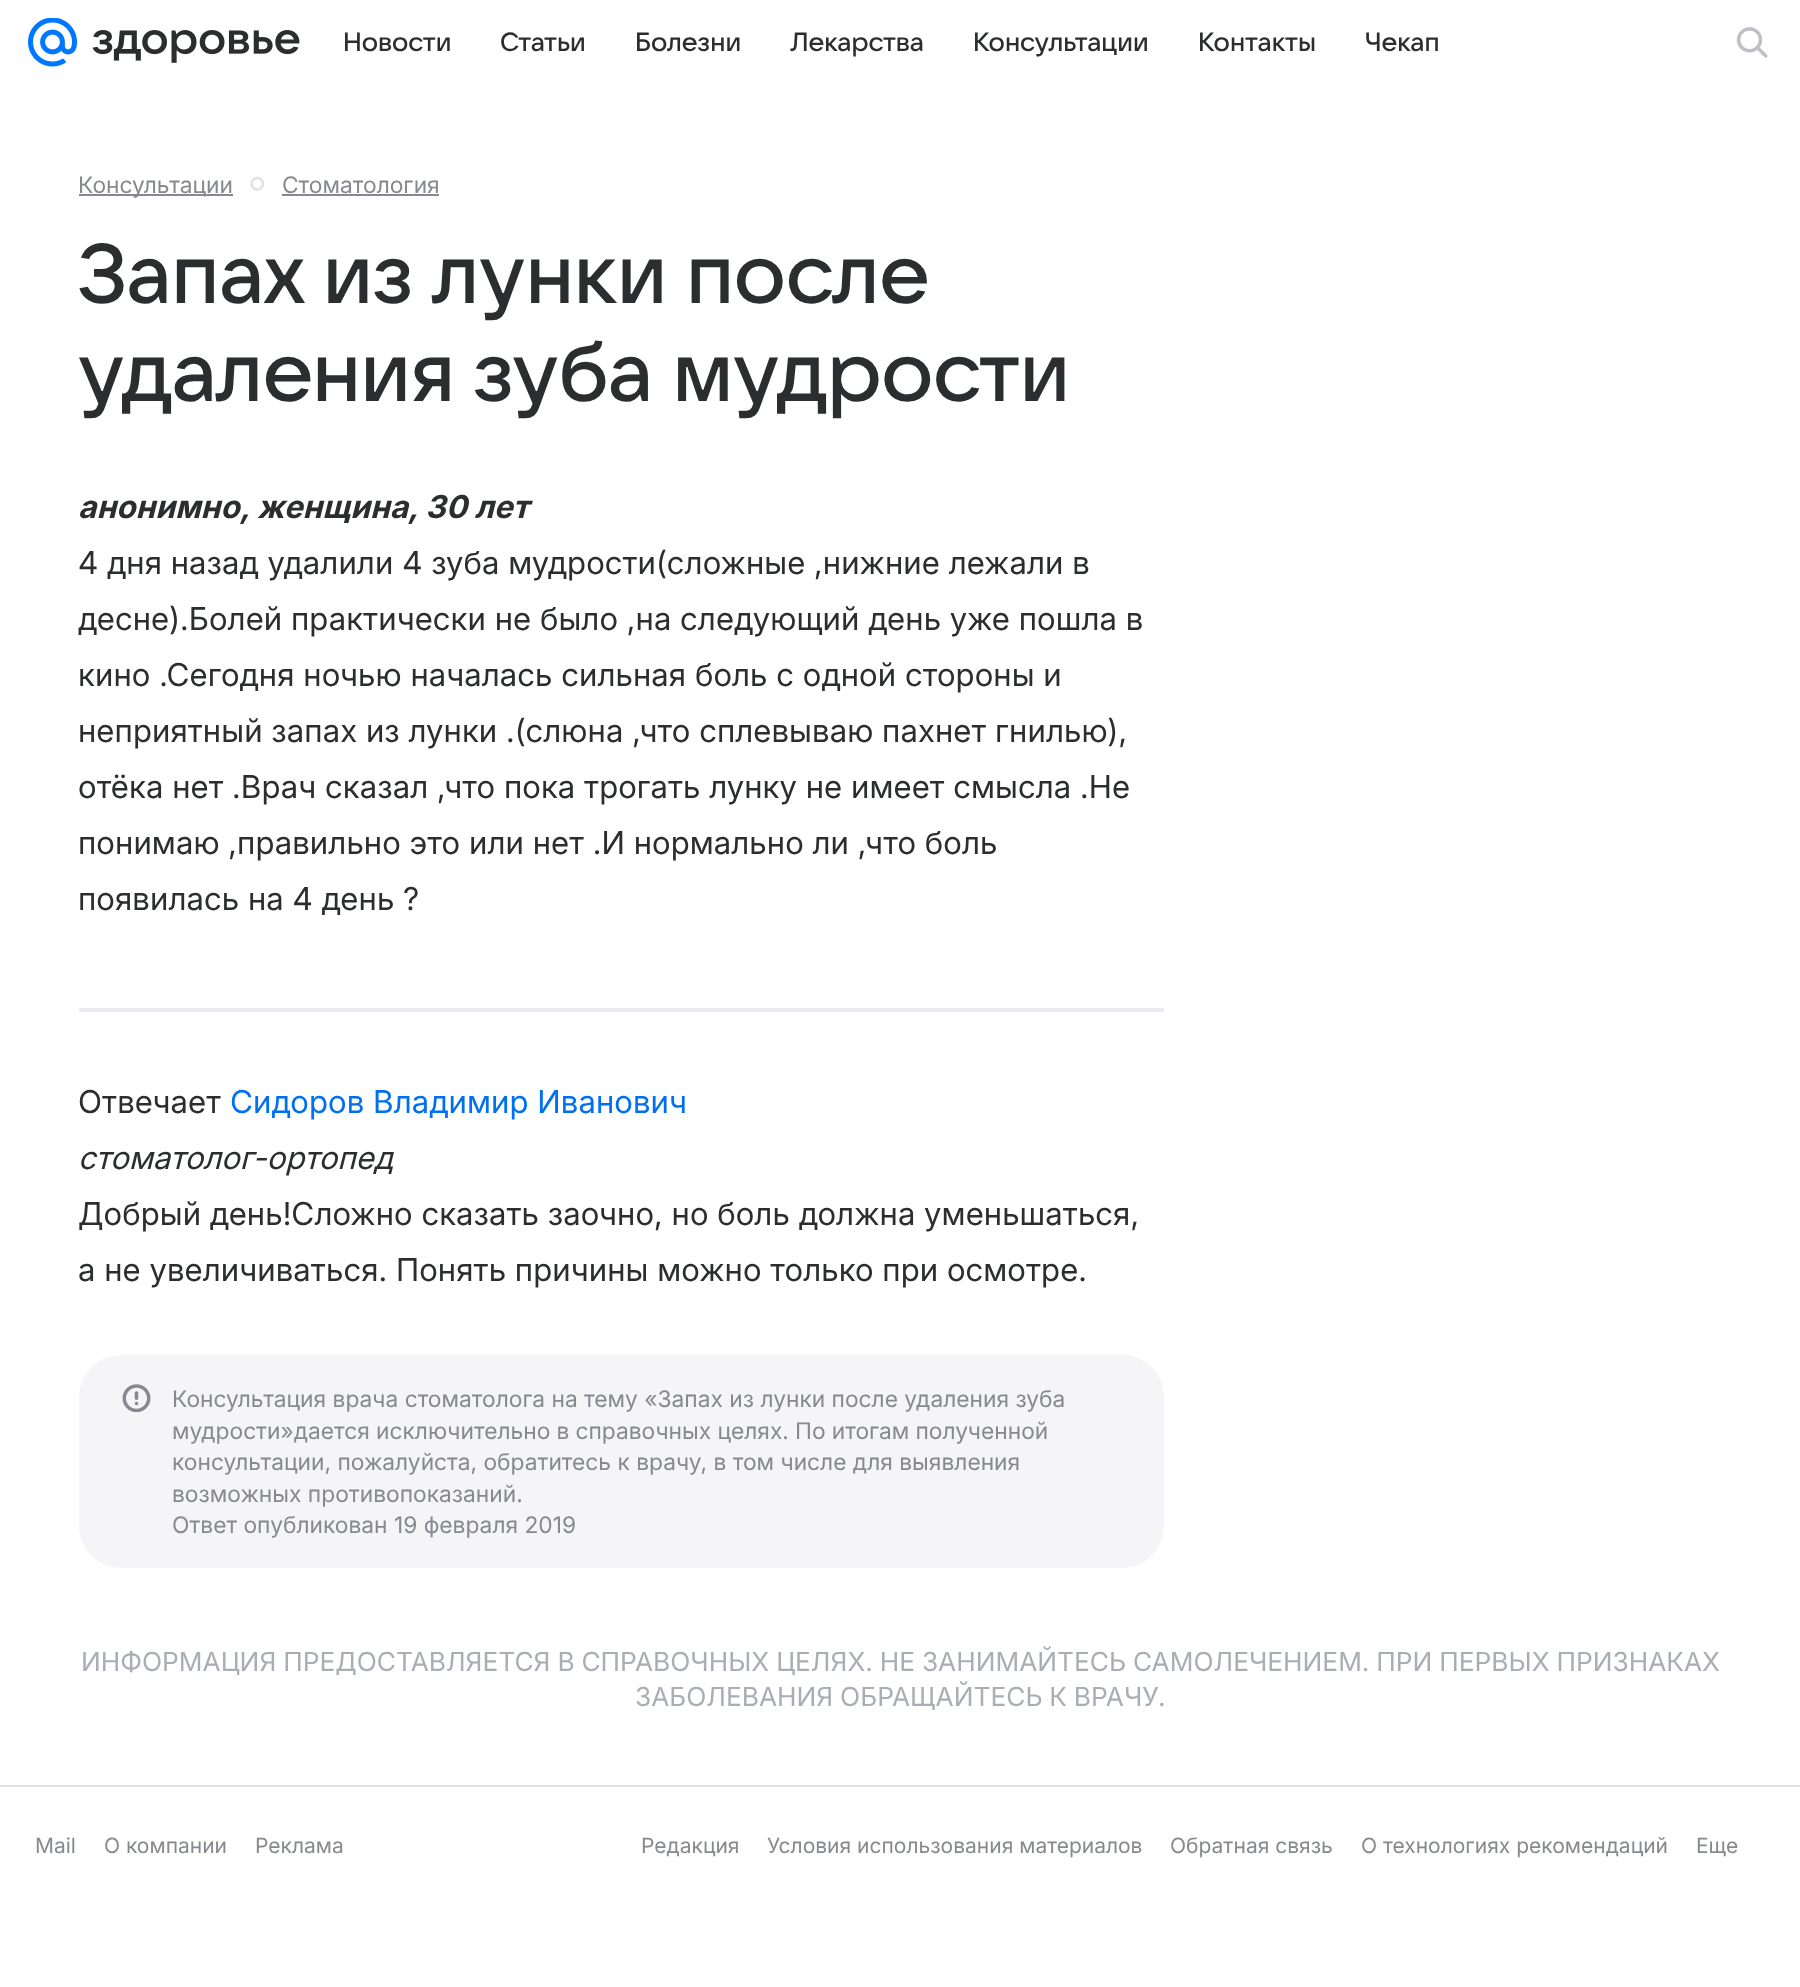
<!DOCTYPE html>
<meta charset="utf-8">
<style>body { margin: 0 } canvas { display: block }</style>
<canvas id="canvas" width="1800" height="1987"></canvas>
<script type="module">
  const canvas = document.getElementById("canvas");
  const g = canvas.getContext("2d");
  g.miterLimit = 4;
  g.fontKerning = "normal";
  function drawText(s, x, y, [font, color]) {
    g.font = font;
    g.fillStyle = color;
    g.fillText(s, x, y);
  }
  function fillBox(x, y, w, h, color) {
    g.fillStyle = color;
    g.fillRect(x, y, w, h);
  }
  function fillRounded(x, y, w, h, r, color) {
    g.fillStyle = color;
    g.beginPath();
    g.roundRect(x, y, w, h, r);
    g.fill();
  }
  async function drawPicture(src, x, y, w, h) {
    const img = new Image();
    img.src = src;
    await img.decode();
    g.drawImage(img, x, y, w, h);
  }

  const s1 = ["500 26.25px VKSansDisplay", "#2C2D2E"];
  const s2 = ["22.75px 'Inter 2'", "#87898F"];
  const s3 = ["500 84px VKSansDisplay", "#2C2D2E"];
  const s4 = ["italic bold 31.5px Inter", "#2C2D2E"];
  const s5 = ["31.5px Inter", "#2C2D2E"];
  const s6 = ["31.5px Inter", "#0070F0"];
  const s7 = ["italic 31.5px Inter", "#2C2D2E"];
  const s8 = ["26.25px 'Inter 2'", "#AAADB3"];
  const s9 = ["21px 'Inter 2'", "#87898F"];

  fillBox(0, 0, 1800, 1987, "#FFFFFF");
  await drawPicture("pic1.png", 28, 18, 49, 49);
  await drawPicture("pic2.png", 92, 30, 208, 33);
  drawText("Новости", 343, 51, s1);
  drawText("Статьи", 500, 51, s1);
  drawText("Болезни", 635, 51, s1);
  drawText("Лекарства", 790, 51, s1);
  drawText("Консультации", 973, 51, s1);
  drawText("Контакты", 1198, 51, s1);
  drawText("Чекап", 1365, 51, s1);
  await drawPicture("pic3.png", 1736, 27, 32, 31);
  fillBox(79, 194, 154, 2, "#87898F");
  drawText("Консультации", 78, 193, s2);
  await drawPicture("pic4.png", 250, 176, 15, 15);
  drawText("Стоматология", 282, 193, s2);
  fillBox(282, 194, 157, 2, "#87898F");
  g.letterSpacing = "-0.4px";
  g.wordSpacing = "-0.5px";
  drawText("Запах из лунки после", 78, 303, s3);
  g.wordSpacing = "0px";
  drawText("удаления зуба мудрости", 78, 401, s3);
  g.letterSpacing = "0.1px";
  drawText("анонимно, женщина, 30 лет", 78, 518, s4);
  drawText("4 дня назад удалили 4 зуба мудрости(сложные ,нижние лежали в", 78, 574, s5);
  drawText("десне).Болей практически не было ,на следующий день уже пошла в", 78, 630, s5);
  drawText("кино .Сегодня ночью началась сильная боль с одной стороны и", 78, 686, s5);
  drawText("неприятный запах из лунки .(слюна ,что сплевываю пахнет гнилью),", 78, 742, s5);
  drawText("отёка нет .Врач сказал ,что пока трогать лунку не имеет смысла .Не", 78, 798, s5);
  drawText("понимаю ,правильно это или нет .И нормально ли ,что боль", 78, 854, s5);
  drawText("появилась на 4 день ?", 78, 910, s5);
  fillBox(79, 1008, 1085, 4, "#EBECEF");
  drawText("Отвечает", 78, 1113, s5);
  drawText("Сидоров Владимир Иванович", 230, 1113, s6);
  drawText("стоматолог-ортопед", 78, 1169, s7);
  drawText("Добрый день!Сложно сказать заочно, но боль должна уменьшаться,", 78, 1225, s5);
  drawText("а не увеличиваться. Понять причины можно только при осмотре.", 78, 1281, s5);
  fillRounded(79, 1355, 1085, 213, 42, "#F5F5F7");
  await drawPicture("pic5.png", 122, 1384, 29, 28);
  g.letterSpacing = "0px";
  drawText("Консультация врача стоматолога на тему «Запах из лунки после удаления зуба", 172, 1407, s2);
  g.wordSpacing = "-0.25px";
  drawText("мудрости»дается исключительно в справочных целях. По итогам полученной", 172, 1439, s2);
  g.wordSpacing = "0px";
  drawText("консультации, пожалуйста, обратитесь к врачу, в том числе для выявления", 172, 1470, s2);
  drawText("возможных противопоказаний.", 172, 1502, s2);
  drawText("Ответ опубликован 19 февраля 2019", 172, 1533, s2);
  g.wordSpacing = "-0.5px";
  drawText("ИНФОРМАЦИЯ ПРЕДОСТАВЛЯЕТСЯ В СПРАВОЧНЫХ ЦЕЛЯХ. НЕ ЗАНИМАЙТЕСЬ САМОЛЕЧЕНИЕМ. ПРИ ПЕРВЫХ ПРИЗНАКАХ", 81, 1671, s8);
  drawText("ЗАБОЛЕВАНИЯ ОБРАЩАЙТЕСЬ К ВРАЧУ.", 635, 1706, s8);
  fillBox(0, 1785, 1800, 2, "#E0E2E8");
  g.wordSpacing = "0px";
  drawText("Mail", 35, 1853, s9);
  drawText("О компании", 104, 1853, s9);
  drawText("Реклама", 255, 1853, s9);
  drawText("Редакция", 641, 1853, s9);
  drawText("Условия использования материалов", 767, 1853, s9);
  drawText("Обратная связь", 1170, 1853, s9);
  drawText("О технологиях рекомендаций", 1361, 1853, s9);
  drawText("Еще", 1696, 1853, s9);
</script>
